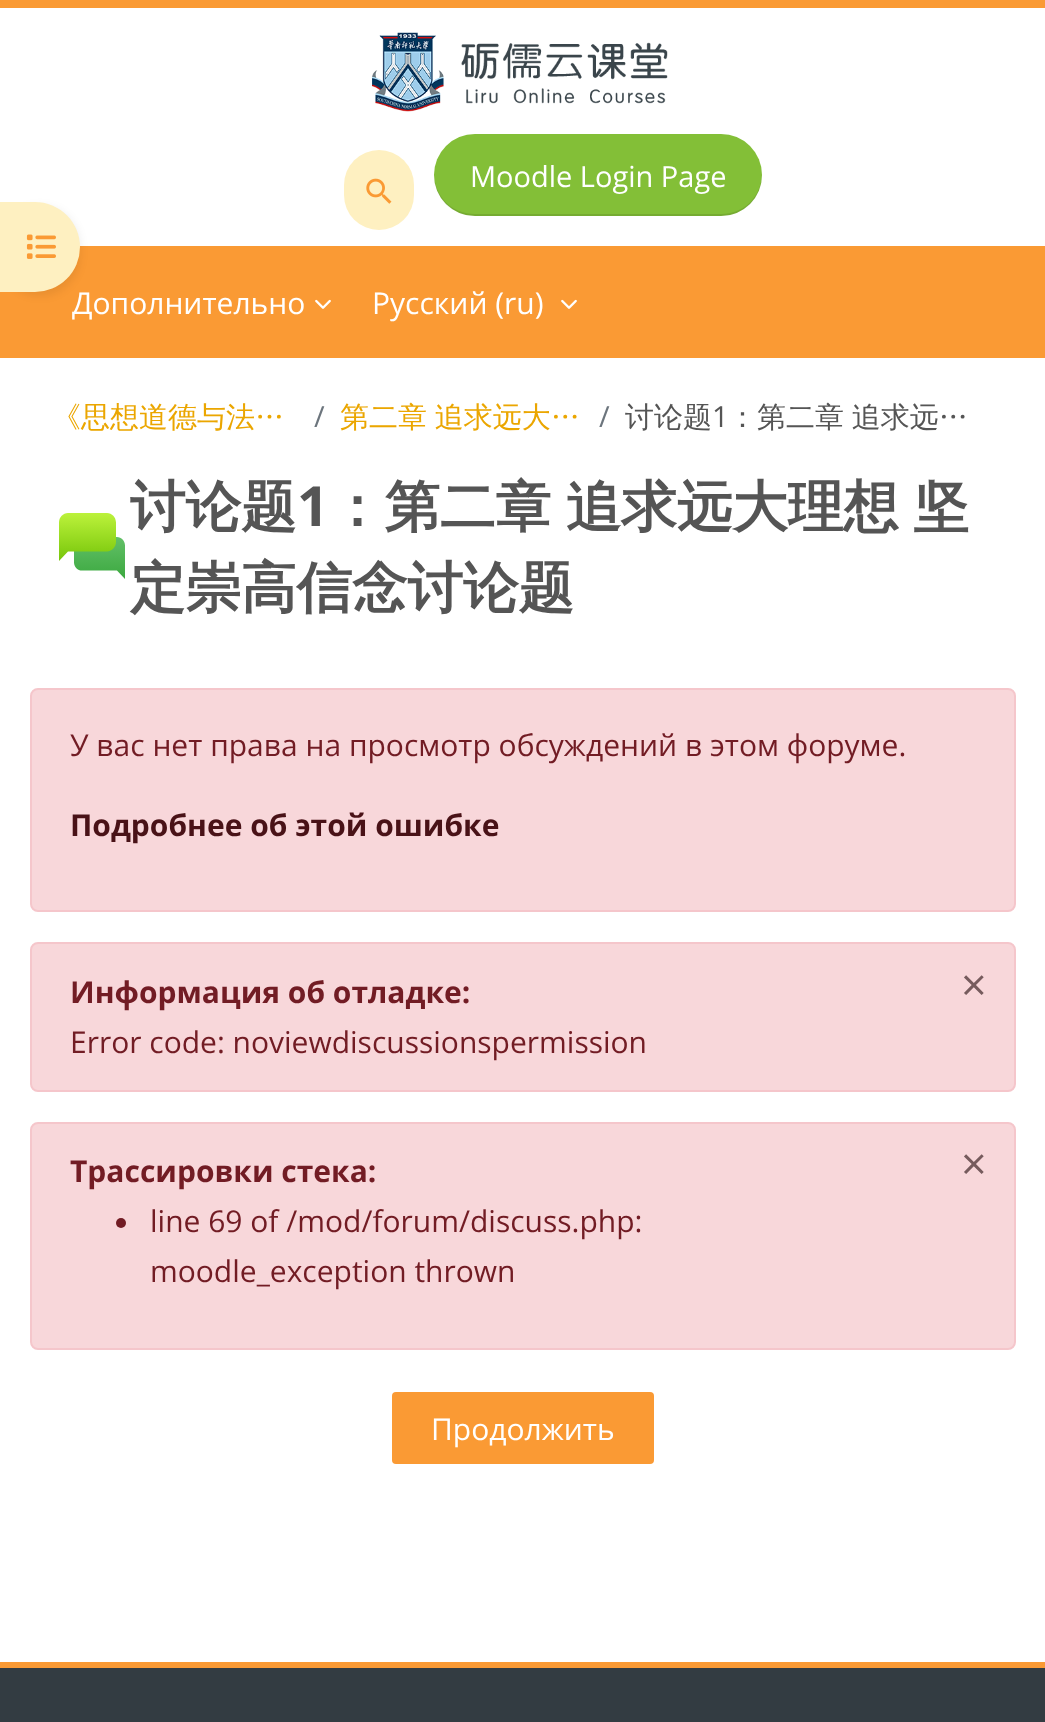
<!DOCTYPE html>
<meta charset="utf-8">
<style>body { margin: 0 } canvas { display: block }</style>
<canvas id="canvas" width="1045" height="1722"></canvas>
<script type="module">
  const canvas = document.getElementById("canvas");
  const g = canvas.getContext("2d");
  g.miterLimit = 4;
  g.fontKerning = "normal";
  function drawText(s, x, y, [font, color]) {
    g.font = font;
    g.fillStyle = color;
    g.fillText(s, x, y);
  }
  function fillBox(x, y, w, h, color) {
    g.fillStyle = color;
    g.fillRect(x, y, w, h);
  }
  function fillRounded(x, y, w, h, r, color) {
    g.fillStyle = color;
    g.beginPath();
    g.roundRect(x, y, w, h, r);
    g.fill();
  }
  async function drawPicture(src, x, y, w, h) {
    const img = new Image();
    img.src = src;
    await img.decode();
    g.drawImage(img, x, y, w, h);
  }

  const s1 = ["29px Open Sans", "#FFFFFF"];
  const s2 = ["30px Open Sans", "#FFFFFF"];
  const s3 = ["500 29px WenQuanYi Zen Hei", "#EBA600"];
  const s4 = ["29px Open Sans", "#6C757D"];
  const s5 = ["500 29px WenQuanYi Zen Hei", "#555555"];
  const s6 = ["29px Open Sans", "#555555"];
  const s7 = ["bold 55.5px WenQuanYi Zen Hei", "#555555"];
  const s8 = ["bold 55.5px Open Sans", "#555555"];
  const s9 = ["30px Open Sans", "#721C24"];
  const s10 = ["bold 30px Open Sans", "#491217"];
  const s11 = ["bold 30px Open Sans", "#721C24"];
  const s12 = ["45px Open Sans", "#765B5D"];

  fillBox(0, 0, 1045, 1722, "#FFFFFF");
  fillBox(0, 0, 1045, 8, "#FA9A34");
  await drawPicture("pic1.png", 372, 32, 296, 80);
  fillRounded(344, 150, 70, 80, 35, "#FEF0C1");
  await drawPicture("pic2.png", 366, 178, 26, 26);
  fillRounded(434, 134, 328, 82, 41, "#83BF37");
  g.fillStyle = "rgba(0, 0, 0, 0.1)";
  g.beginPath();
  g.moveTo(434, 174);
  g.lineTo(434, 175);
  g.bezierCurveTo(434, 198, 452, 216, 475, 216);
  g.lineTo(721, 216);
  g.bezierCurveTo(744, 216, 762, 198, 762, 175);
  g.lineTo(762, 174);
  g.bezierCurveTo(761, 197, 744, 214, 721, 214);
  g.lineTo(475, 214);
  g.bezierCurveTo(452, 214, 435, 197, 434, 174);
  g.closePath();
  g.fill();
  drawText("Moodle Login Page", 470, 187, s1);
  fillBox(0, 246, 1045, 112, "#FA9A34");
  g.fillStyle = "rgba(0, 0, 0, 0.07)";
  g.filter = "blur(4px)";
  g.beginPath();
  g.roundRect(0, 206, 80, 90, 45);
  g.fill();
  g.filter = "none";
  g.fillStyle = "#FEF0C1";
  g.beginPath();
  g.roundRect(0, 202, 80, 90, [0, 45, 45, 0]);
  g.fill();
  await drawPicture("pic3.png", 26, 234, 30, 25);
  drawText("Дополнительно", 72, 314, s2);
  await drawPicture("pic4.png", 315, 299, 16, 10);
  drawText("Русский (ru)", 372, 314, s2);
  await drawPicture("pic4.png", 561, 299, 16, 10);
  drawText("《思想道德与法…", 52, 427, s3);
  drawText("/", 314, 427, s4);
  g.wordSpacing = "-1px";
  drawText("第二章 追求远大…", 340, 427, s3);
  g.wordSpacing = "0px";
  drawText("/", 599, 427, s4);
  drawText("讨论题", 625, 427, s5);
  drawText("1", 712, 427, s6);
  g.wordSpacing = "-1px";
  drawText("：第二章 追求远…", 728, 427, s5);
  await drawPicture("pic5.png", 59, 513, 66, 66);
  g.wordSpacing = "0px";
  drawText("讨论题", 130, 526, s7);
  drawText("1", 297, 526, s8);
  g.wordSpacing = "-2px";
  drawText("：第二章 追求远大理想 坚", 329, 526, s7);
  g.wordSpacing = "0px";
  drawText("定崇高信念讨论题", 130, 607, s7);
  g.fillStyle = "#F8D7DA";
  g.beginPath();
  g.roundRect(31, 689, 984, 222, 7);
  g.fill();
  g.strokeStyle = "#F5C6CB";
  g.lineWidth = 2;
  g.stroke();
  drawText("У вас нет права на просмотр обсуждений в этом форуме.", 70, 756, s9);
  drawText("Подробнее об этой ошибке", 70, 836, s10);
  g.fillStyle = "#F8D7DA";
  g.beginPath();
  g.roundRect(31, 943, 984, 148, 7);
  g.fill();
  g.stroke();
  drawText("Информация об отладке:", 70, 1003, s11);
  drawText("×", 961, 1001, s12);
  drawText("Error code: noviewdiscussionspermission", 70, 1053, s9);
  g.fillStyle = "#F8D7DA";
  g.beginPath();
  g.roundRect(31, 1123, 984, 226, 7);
  g.fill();
  g.stroke();
  drawText("Трассировки стека:", 70, 1182, s11);
  drawText("×", 961, 1180, s12);
  g.fillStyle = "#721C24";
  g.beginPath();
  g.arc(121, 1223, 5, 0, Math.PI * 2);
  g.fill();
  drawText("line 69 of /mod/forum/discuss.php:", 150, 1232, s9);
  drawText("moodle_exception thrown", 150, 1282, s9);
  fillRounded(392, 1392, 262, 72, 4, "#FA9A34");
  drawText("Продолжить", 431, 1440, s2);
  fillBox(0, 1668, 1045, 54, "#333C42");
  fillBox(0, 1662, 1045, 6, "#FA9A34");
</script>
